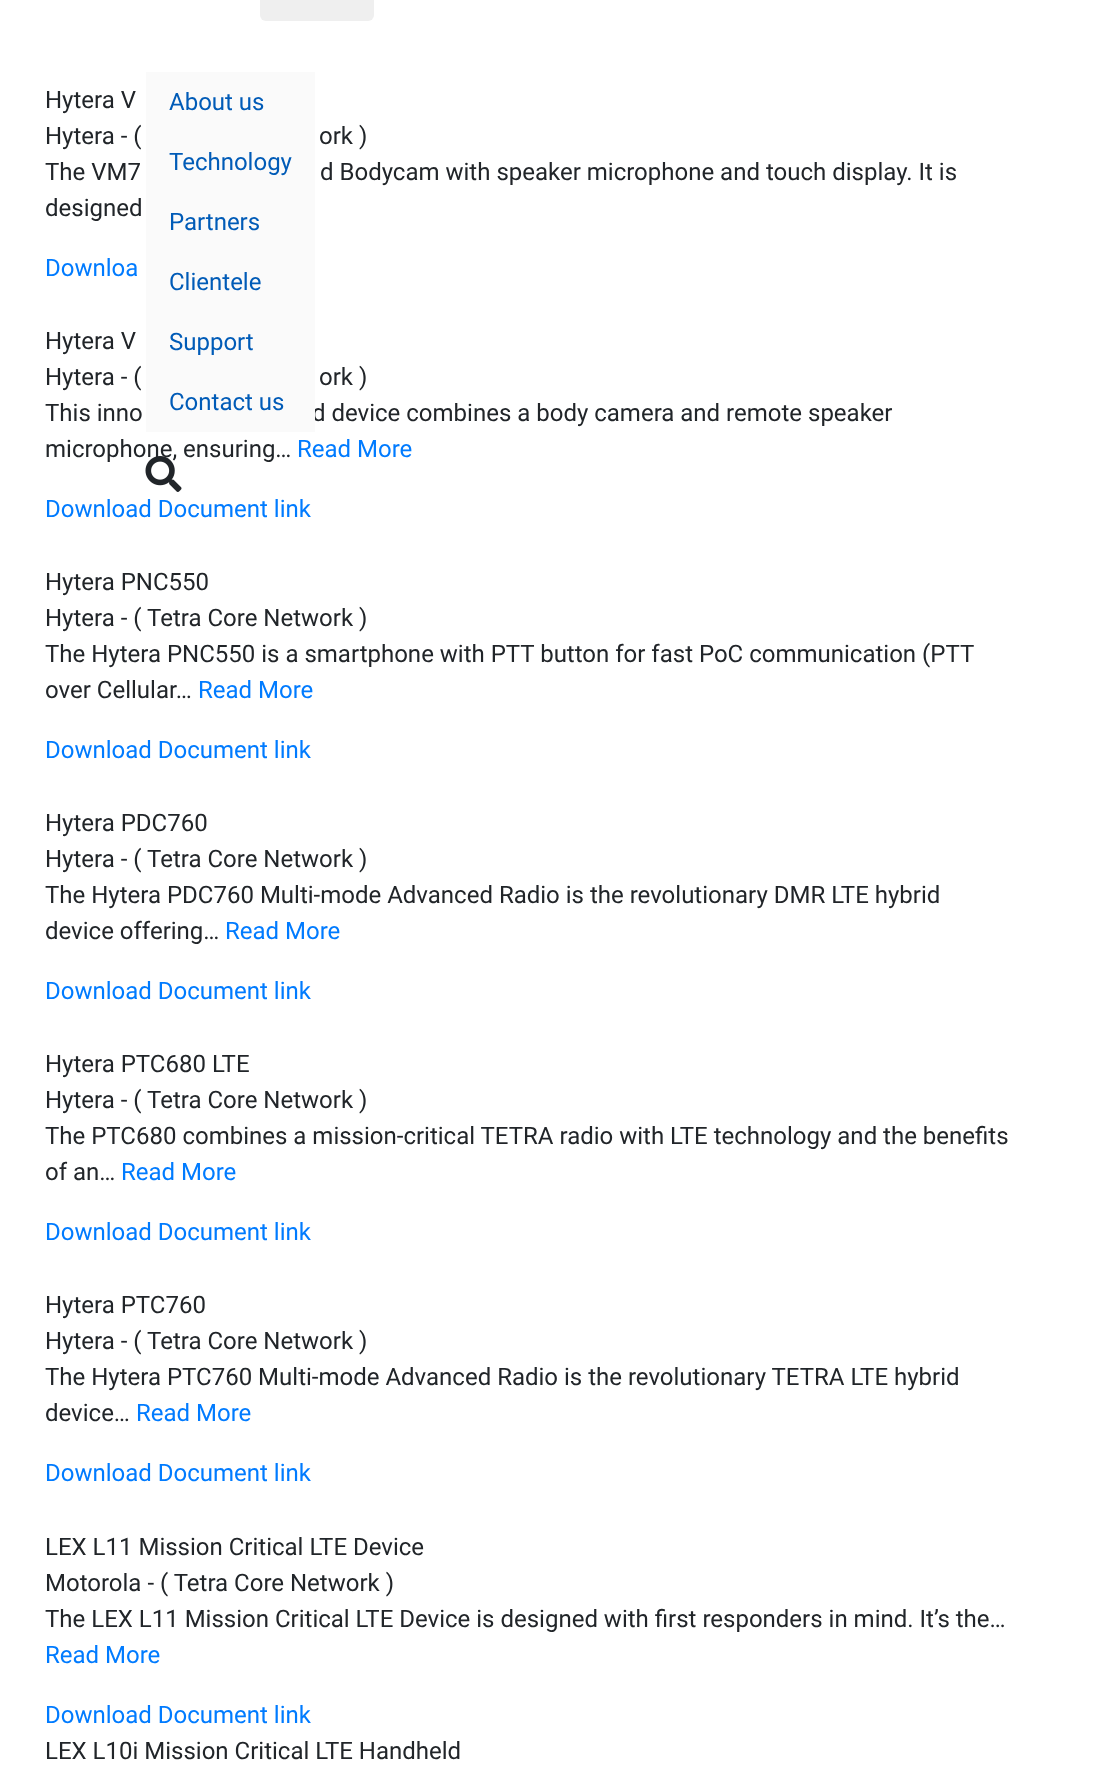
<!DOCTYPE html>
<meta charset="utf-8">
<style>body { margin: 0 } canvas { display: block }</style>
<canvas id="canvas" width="1099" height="1788"></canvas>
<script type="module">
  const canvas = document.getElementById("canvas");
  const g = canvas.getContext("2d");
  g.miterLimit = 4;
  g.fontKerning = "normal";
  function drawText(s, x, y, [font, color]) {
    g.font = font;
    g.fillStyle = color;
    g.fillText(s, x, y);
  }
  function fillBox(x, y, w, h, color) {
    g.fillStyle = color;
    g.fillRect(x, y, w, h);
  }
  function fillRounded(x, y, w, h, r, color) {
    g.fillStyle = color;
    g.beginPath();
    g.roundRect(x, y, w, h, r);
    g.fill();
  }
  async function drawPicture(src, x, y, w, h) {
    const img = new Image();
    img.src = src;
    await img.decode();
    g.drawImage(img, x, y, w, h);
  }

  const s1 = ["24px Roboto", "#212529"];
  const s2 = ["24px Roboto", "#007BFF"];
  const s3 = ["24px Roboto", "#005BB7"];

  fillBox(0, 0, 1099, 1788, "#FFFFFF");
  fillRounded(260, -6, 114, 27, 6, "#EFEFEF");
  drawText("Hytera V", 45, 108, s1);
  drawText("Hytera - (", 45, 144, s1);
  drawText("ork )", 319, 144, s1);
  drawText("The VM7", 45, 180, s1);
  drawText("d Bodycam with speaker microphone and touch display. It is", 320, 180, s1);
  drawText("designed", 45, 216, s1);
  drawText("Downloa", 45, 276, s2);
  drawText("Hytera V", 45, 349, s1);
  drawText("Hytera - (", 45, 385, s1);
  drawText("ork )", 319, 385, s1);
  drawText("This inno", 45, 421, s1);
  drawText("d device combines a body camera and remote speaker", 312, 421, s1);
  drawText("microphone, ensuring…", 45, 457, s1);
  drawText("Read More", 297, 457, s2);
  drawText("Download Document link", 45, 517, s2);
  drawText("Hytera PNC550", 45, 590, s1);
  drawText("Hytera - ( Tetra Core Network )", 45, 626, s1);
  drawText("The Hytera PNC550 is a smartphone with PTT button for fast PoC communication (PTT", 45, 662, s1);
  drawText("over Cellular…", 45, 698, s1);
  drawText("Read More", 198, 698, s2);
  drawText("Download Document link", 45, 758, s2);
  drawText("Hytera PDC760", 45, 831, s1);
  drawText("Hytera - ( Tetra Core Network )", 45, 867, s1);
  drawText("The Hytera PDC760 Multi-mode Advanced Radio is the revolutionary DMR LTE hybrid", 45, 903, s1);
  drawText("device offering…", 45, 939, s1);
  drawText("Read More", 225, 939, s2);
  drawText("Download Document link", 45, 999, s2);
  drawText("Hytera PTC680 LTE", 45, 1072, s1);
  drawText("Hytera - ( Tetra Core Network )", 45, 1108, s1);
  drawText("The PTC680 combines a mission-critical TETRA radio with LTE technology and the benefits", 45, 1144, s1);
  drawText("of an…", 45, 1180, s1);
  drawText("Read More", 121, 1180, s2);
  drawText("Download Document link", 45, 1240, s2);
  drawText("Hytera PTC760", 45, 1313, s1);
  drawText("Hytera - ( Tetra Core Network )", 45, 1349, s1);
  drawText("The Hytera PTC760 Multi-mode Advanced Radio is the revolutionary TETRA LTE hybrid", 45, 1385, s1);
  drawText("device…", 45, 1421, s1);
  drawText("Read More", 136, 1421, s2);
  drawText("Download Document link", 45, 1481, s2);
  drawText("LEX L11 Mission Critical LTE Device", 45, 1555, s1);
  drawText("Motorola - ( Tetra Core Network )", 45, 1591, s1);
  drawText("The LEX L11 Mission Critical LTE Device is designed with first responders in mind. It’s the…", 45, 1627, s1);
  drawText("Read More", 45, 1663, s2);
  drawText("Download Document link", 45, 1723, s2);
  drawText("LEX L10i Mission Critical LTE Handheld", 45, 1759, s1);
  fillBox(146, 72, 169, 360, "#FAFAFA");
  drawText("About us", 169, 110, s3);
  drawText("Technology", 169, 170, s3);
  drawText("Partners", 169, 230, s3);
  drawText("Clientele", 169, 290, s3);
  drawText("Support", 169, 350, s3);
  drawText("Contact us", 169, 410, s3);
  await drawPicture("pic1.png", 145, 456, 37, 36);
</script>
